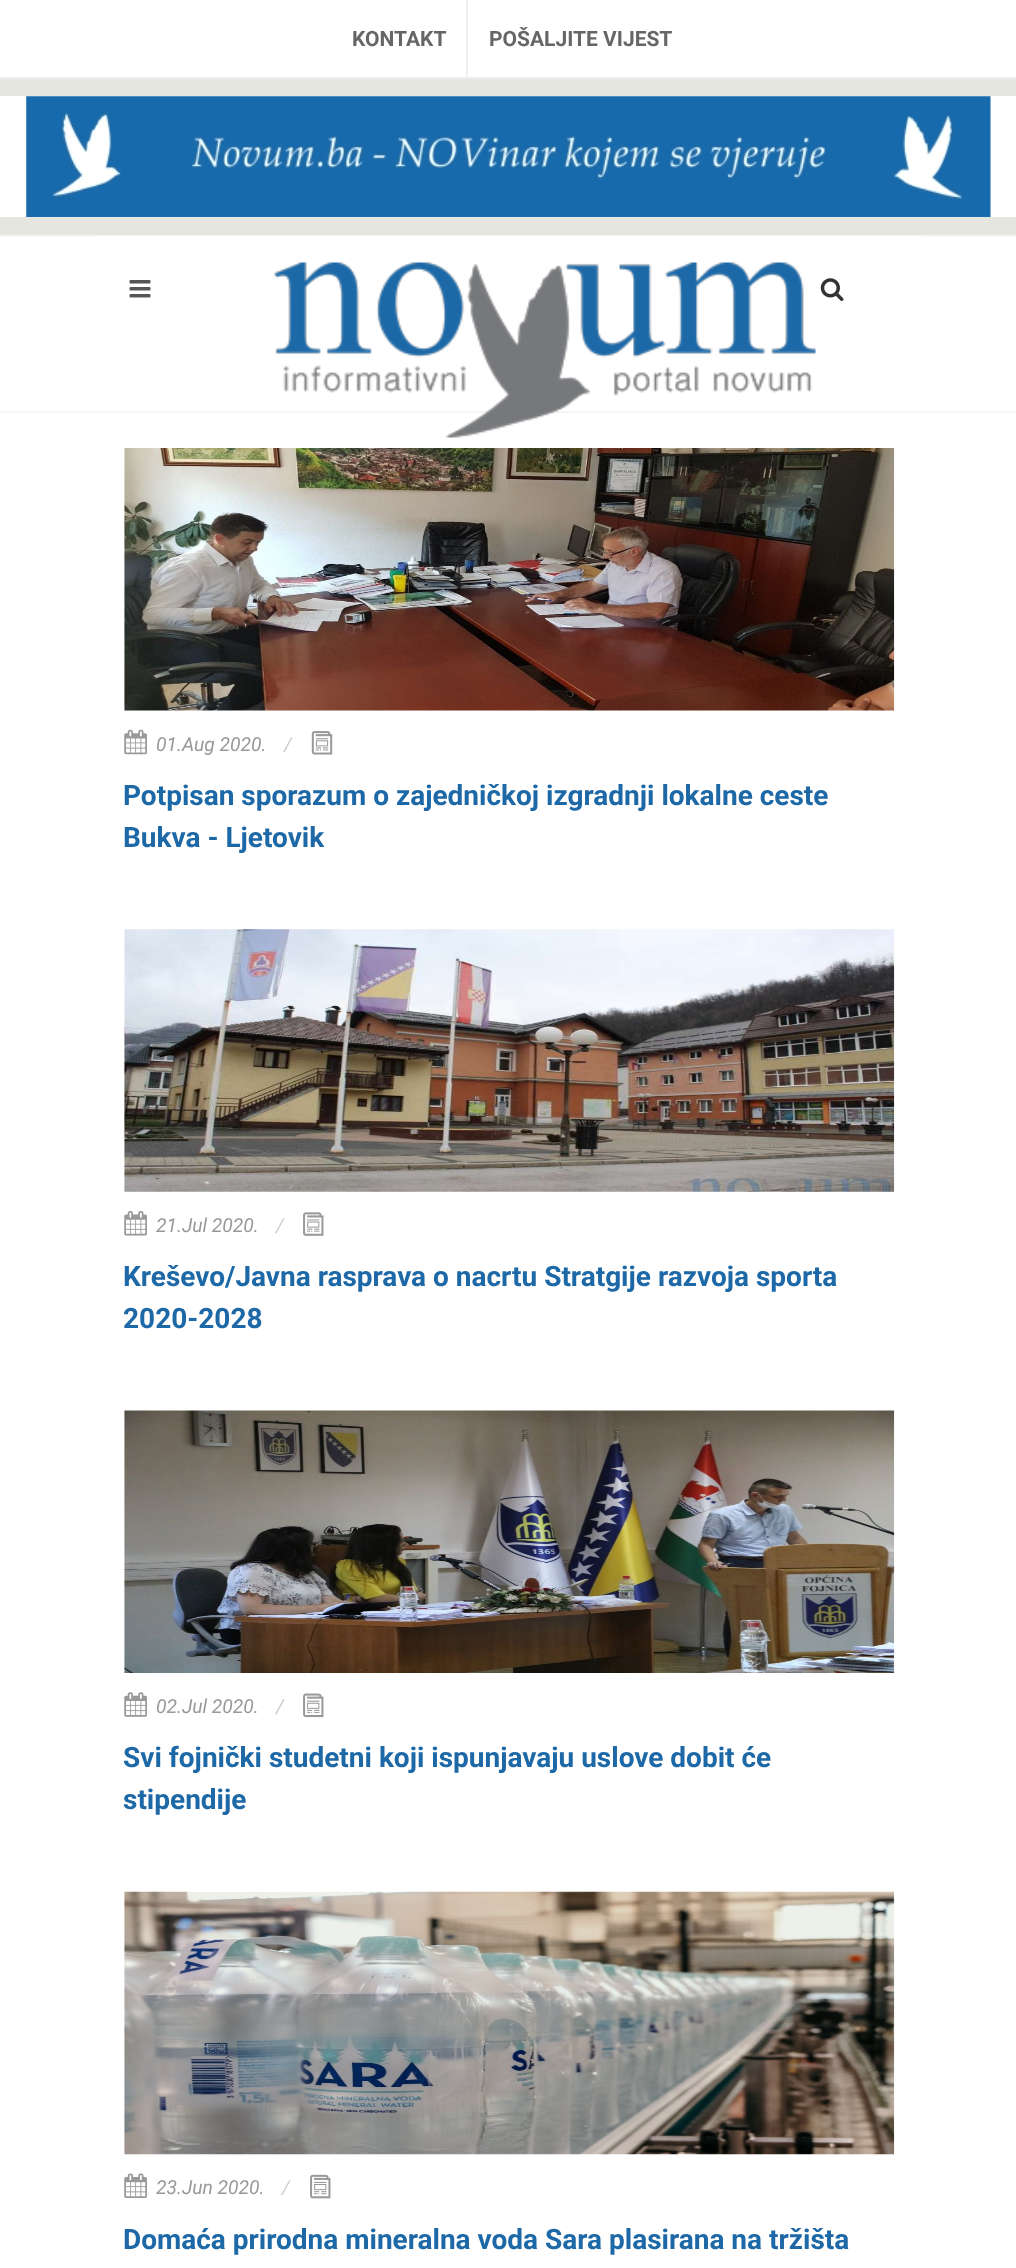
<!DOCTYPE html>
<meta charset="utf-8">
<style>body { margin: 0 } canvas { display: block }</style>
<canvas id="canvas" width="1016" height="2268"></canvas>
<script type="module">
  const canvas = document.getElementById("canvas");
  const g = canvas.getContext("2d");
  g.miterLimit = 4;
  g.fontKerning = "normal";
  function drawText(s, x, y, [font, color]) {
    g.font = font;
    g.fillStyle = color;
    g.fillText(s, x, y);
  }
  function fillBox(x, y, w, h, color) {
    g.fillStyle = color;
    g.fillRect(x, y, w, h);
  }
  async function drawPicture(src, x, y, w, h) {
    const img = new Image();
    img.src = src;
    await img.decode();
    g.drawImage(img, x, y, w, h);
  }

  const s1 = ["bold 21px Roboto", "#666666"];
  const s2 = ["italic 19.25px Roboto", "#999999"];
  const s3 = ["italic 19.25px Roboto", "#CCCCCC"];
  const s4 = ["bold 28px Roboto", "#1D68A6"];

  fillBox(0, 0, 1016, 2268, "#E6E6E1");
  fillBox(0, 0, 1016, 77, "#FFFFFF");
  fillBox(0, 77, 1016, 2, "#EEEEEE");
  drawText("KONTAKT", 352, 46, s1);
  fillBox(466, 0, 2, 77, "#EEEEEE");
  drawText("POŠALJITE VIJEST", 489, 46, s1);
  fillBox(0, 411, 1016, 2, "#F5F5F5");
  fillBox(0, 96, 1016, 121, "#FFFFFF");
  await drawPicture("pic1.png", 26, 96, 965, 121);
  fillBox(0, 237, 1016, 174, "#FFFFFF");
  fillBox(0, 235, 1016, 2, "#F5F5F5");
  fillBox(98, 236, 823, 1, "#FFFFFF");
  await drawPicture("pic2.png", 129, 280, 22, 18);
  fillBox(0, 413, 1016, 1855, "#FFFFFF");
  await drawPicture("pic3.png", 274, 262, 542, 176);
  await drawPicture("pic4.png", 820, 278, 24, 23);
  await drawPicture("pic5.png", 124, 448, 771, 263);
  await drawPicture("pic6.png", 124, 729, 23, 26);
  drawText("01.Aug 2020.", 156, 751, s2);
  drawText("/", 284, 751, s3);
  await drawPicture("pic7.png", 311, 731, 22, 24);
  drawText("Potpisan sporazum o zajedničkoj izgradnji lokalne ceste", 123, 805, s4);
  drawText("Bukva - Ljetovik", 123, 847, s4);
  await drawPicture("pic8.png", 124, 929, 771, 263);
  await drawPicture("pic9.png", 124, 1211, 23, 25);
  drawText("21.Jul 2020.", 156, 1232, s2);
  drawText("/", 276, 1232, s3);
  await drawPicture("pic10.png", 303, 1212, 21, 24);
  drawText("Kreševo/Javna rasprava o nacrtu Stratgije razvoja sporta", 123, 1286, s4);
  drawText("2020-2028", 123, 1328, s4);
  await drawPicture("pic11.png", 124, 1410, 771, 263);
  await drawPicture("pic12.png", 124, 1692, 23, 25);
  drawText("02.Jul 2020.", 156, 1713, s2);
  drawText("/", 276, 1713, s3);
  await drawPicture("pic13.png", 303, 1693, 21, 25);
  drawText("Svi fojnički studetni koji ispunjavaju uslove dobit će", 123, 1767, s4);
  drawText("stipendije", 123, 1809, s4);
  await drawPicture("pic14.png", 124, 1891, 771, 264);
  await drawPicture("pic15.png", 124, 2173, 23, 25);
  drawText("23.Jun 2020.", 156, 2194, s2);
  drawText("/", 282, 2194, s3);
  await drawPicture("pic16.png", 310, 2174, 21, 25);
  drawText("Domaća prirodna mineralna voda Sara plasirana na tržišta", 123, 2249, s4);
</script>
